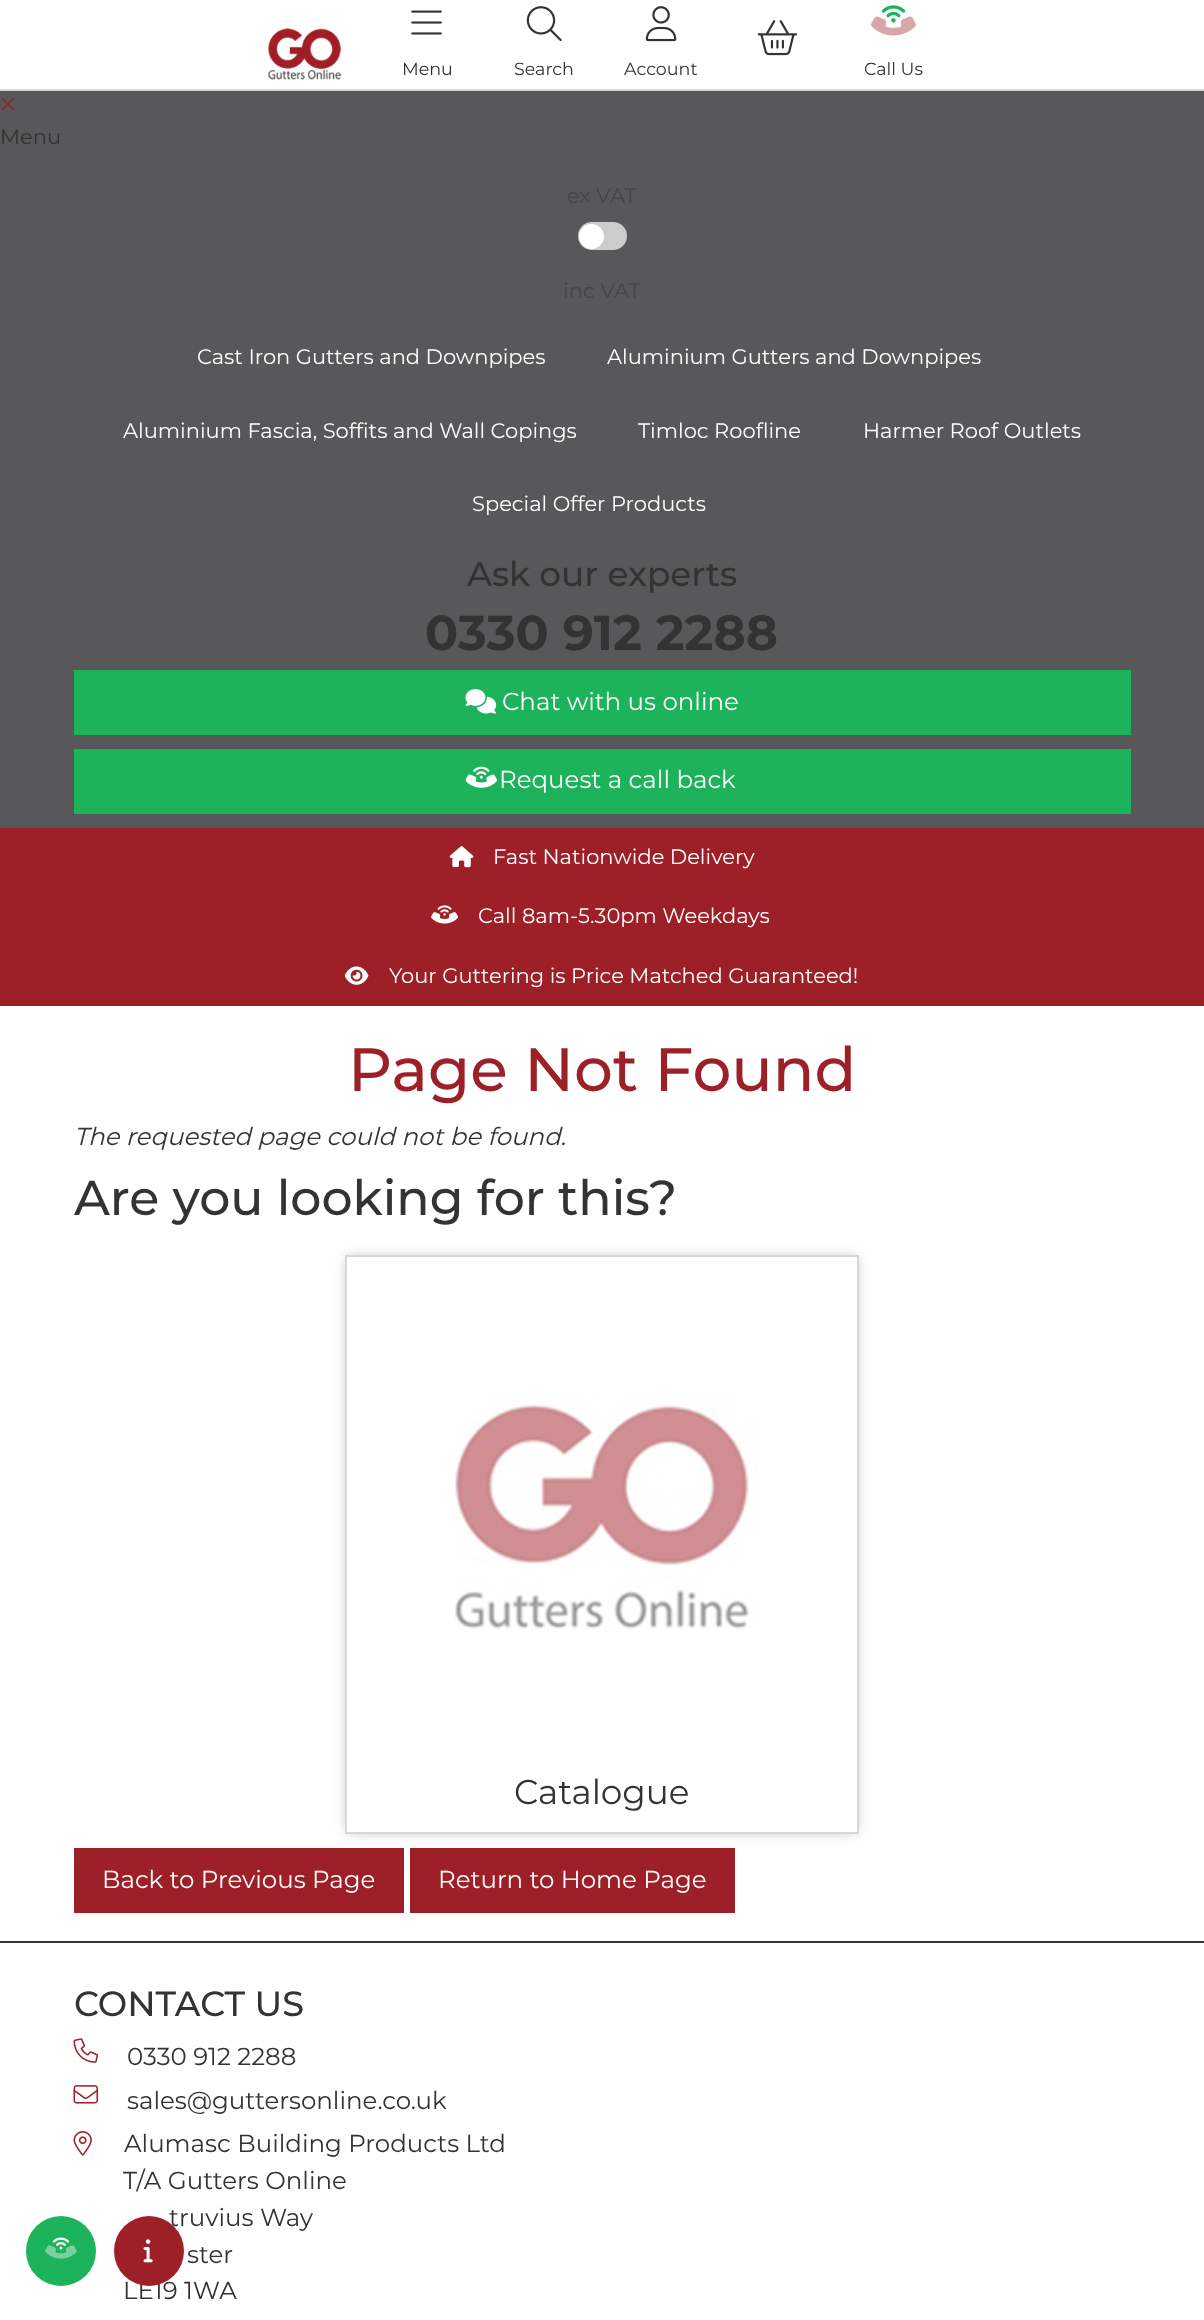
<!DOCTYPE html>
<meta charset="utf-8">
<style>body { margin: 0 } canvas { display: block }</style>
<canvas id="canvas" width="1204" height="2320"></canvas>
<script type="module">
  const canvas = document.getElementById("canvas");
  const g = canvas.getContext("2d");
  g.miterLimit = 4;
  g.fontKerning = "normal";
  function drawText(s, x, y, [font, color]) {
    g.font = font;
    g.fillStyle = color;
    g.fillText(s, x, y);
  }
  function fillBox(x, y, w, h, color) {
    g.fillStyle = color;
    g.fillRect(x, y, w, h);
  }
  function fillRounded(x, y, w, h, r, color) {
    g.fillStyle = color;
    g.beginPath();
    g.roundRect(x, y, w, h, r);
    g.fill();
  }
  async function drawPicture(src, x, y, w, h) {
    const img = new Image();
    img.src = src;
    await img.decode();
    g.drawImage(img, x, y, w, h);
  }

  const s1 = ["17.5px Montserrat", "#333333"];
  const s2 = ["21px Montserrat", "#333333"];
  const s3 = ["21px Montserrat", "#464647"];
  const s4 = ["21px Montserrat", "#FFFFFF"];
  const s5 = ["500 34.25px Montserrat", "#333333"];
  const s6 = ["bold 49px Montserrat", "#333333"];
  const s7 = ["24.5px Montserrat", "#FFFFFF"];
  const s8 = ["500 61.25px Montserrat", "#9D2028"];
  const s9 = ["italic 24.5px Montserrat", "#333333"];
  const s10 = ["500 49px Montserrat", "#333333"];
  const s11 = ["34.25px Montserrat", "#333333"];
  const s12 = ["500 35px Montserrat", "#333333"];
  const s13 = ["24.5px Montserrat", "#333333"];

  fillBox(0, 0, 1204, 2320, "#FFFFFF");
  fillBox(0, 89, 1204, 2, "#D7D7D7");
  await drawPicture("pic1.png", 267, 28, 75, 52);
  await drawPicture("pic2.png", 411, 10, 31, 25);
  drawText("Menu", 402, 75, s1);
  await drawPicture("pic3.png", 526, 6, 36, 36);
  drawText("Search", 514, 75, s1);
  await drawPicture("pic4.png", 645, 6, 32, 36);
  drawText("Account", 624, 75, s1);
  await drawPicture("pic5.png", 757, 20, 41, 36);
  await drawPicture("pic6.png", 881, 5, 25, 18);
  await drawPicture("pic7.png", 871, 16, 45, 20);
  drawText("Call Us", 864, 75, s1);
  fillBox(0, 91, 1204, 737, "#58585A");
  await drawPicture("pic8.png", 1, 97, 14, 14);
  drawText("Menu", 0, 144, s2);
  drawText("ex VAT", 567, 203, s3);
  fillRounded(578, 222, 49, 28, 14, "#CCCCCC");
  g.fillStyle = "#FFFFFF";
  g.beginPath();
  g.arc(591.5, 236.5, 12.5, 0, Math.PI * 2);
  g.fill();
  drawText("inc VAT", 563, 298, s3);
  drawText("Cast Iron Gutters and Downpipes", 197, 364, s4);
  drawText("Aluminium Gutters and Downpipes", 607, 364, s4);
  drawText("Aluminium Fascia, Soffits and Wall Copings", 123, 438, s4);
  drawText("Timloc Roofline", 638, 438, s4);
  drawText("Harmer Roof Outlets", 863, 438, s4);
  drawText("Special Offer Products", 472, 511, s4);
  drawText("Ask our experts", 467, 586, s5);
  drawText("0330 912 2288", 425, 650, s6);
  fillBox(74, 670, 1057, 65, "#1CB35A");
  await drawPicture("pic9.png", 465, 689, 32, 25);
  drawText("Chat with us online", 502, 710, s7);
  fillBox(74, 749, 1057, 65, "#1CB35A");
  await drawPicture("pic10.png", 465, 766, 32, 22);
  drawText("Request a call back", 499, 788, s7);
  fillBox(0, 828, 1204, 178, "#9D2028");
  await drawPicture("pic11.png", 449, 846, 25, 22);
  drawText("Fast Nationwide Delivery", 493, 864, s4);
  await drawPicture("pic12.png", 431, 905, 27, 19);
  drawText("Call 8am-5.30pm Weekdays", 478, 923, s4);
  await drawPicture("pic13.png", 344, 966, 25, 19);
  drawText("Your Guttering is Price Matched Guaranteed!", 389, 983, s4);
  drawText("Page Not Found", 348, 1091, s8);
  drawText("The requested page could not be found.", 74, 1145, s9);
  drawText("Are you looking for this?", 74, 1215, s10);
  fillBox(74, 1848, 330, 65, "#9D2028");
  fillBox(410, 1848, 325, 65, "#9D2028");
  g.save();
  g.beginPath();
  g.moveTo(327, 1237);
  g.lineTo(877, 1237);
  g.lineTo(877, 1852);
  g.lineTo(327, 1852);
  g.closePath();
  g.moveTo(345, 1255);
  g.lineTo(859, 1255);
  g.lineTo(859, 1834);
  g.lineTo(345, 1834);
  g.closePath();
  g.clip("evenodd");
  g.fillStyle = "#B7B1B1";
  g.filter = "blur(6.5px)";
  g.beginPath();
  g.rect(348, 1258, 508, 573);
  g.fill();
  g.filter = "none";
  g.restore();
  g.strokeStyle = "#D7D7D7";
  g.lineWidth = 2;
  g.strokeRect(346, 1256, 512, 577);
  await drawPicture("pic14.png", 455, 1391, 303, 238);
  drawText("Catalogue", 514, 1804, s11);
  drawText("Back to Previous Page", 102, 1888, s7);
  drawText("Return to Home Page", 438, 1888, s7);
  fillBox(0, 1941, 1204, 2, "#333333");
  drawText("CONTACT US", 74, 2016, s12);
  await drawPicture("pic15.png", 73, 2038, 25, 25);
  drawText("0330 912 2288", 127, 2065, s13);
  await drawPicture("pic16.png", 73, 2085, 25, 19);
  drawText("sales@guttersonline.co.uk", 127, 2109, s13);
  await drawPicture("pic17.png", 73, 2131, 19, 25);
  drawText("Alumasc Building Products Ltd", 124, 2152, s13);
  drawText("T/A Gutters Online", 123, 2189, s13);
  drawText("truvius Way", 169, 2226, s13);
  drawText("ster", 187, 2263, s13);
  drawText("LE19 1WA", 123, 2299, s13);
  g.fillStyle = "#1CB35A";
  g.beginPath();
  g.arc(61, 2251, 35, 0, Math.PI * 2);
  g.fill();
  await drawPicture("pic18.png", 52, 2237, 18, 13);
  await drawPicture("pic19.png", 45, 2245, 32, 14);
  g.fillStyle = "#9D2028";
  g.beginPath();
  g.arc(149, 2251, 35, 0, Math.PI * 2);
  g.fill();
  await drawPicture("pic20.png", 143, 2239, 10, 24);
</script>
